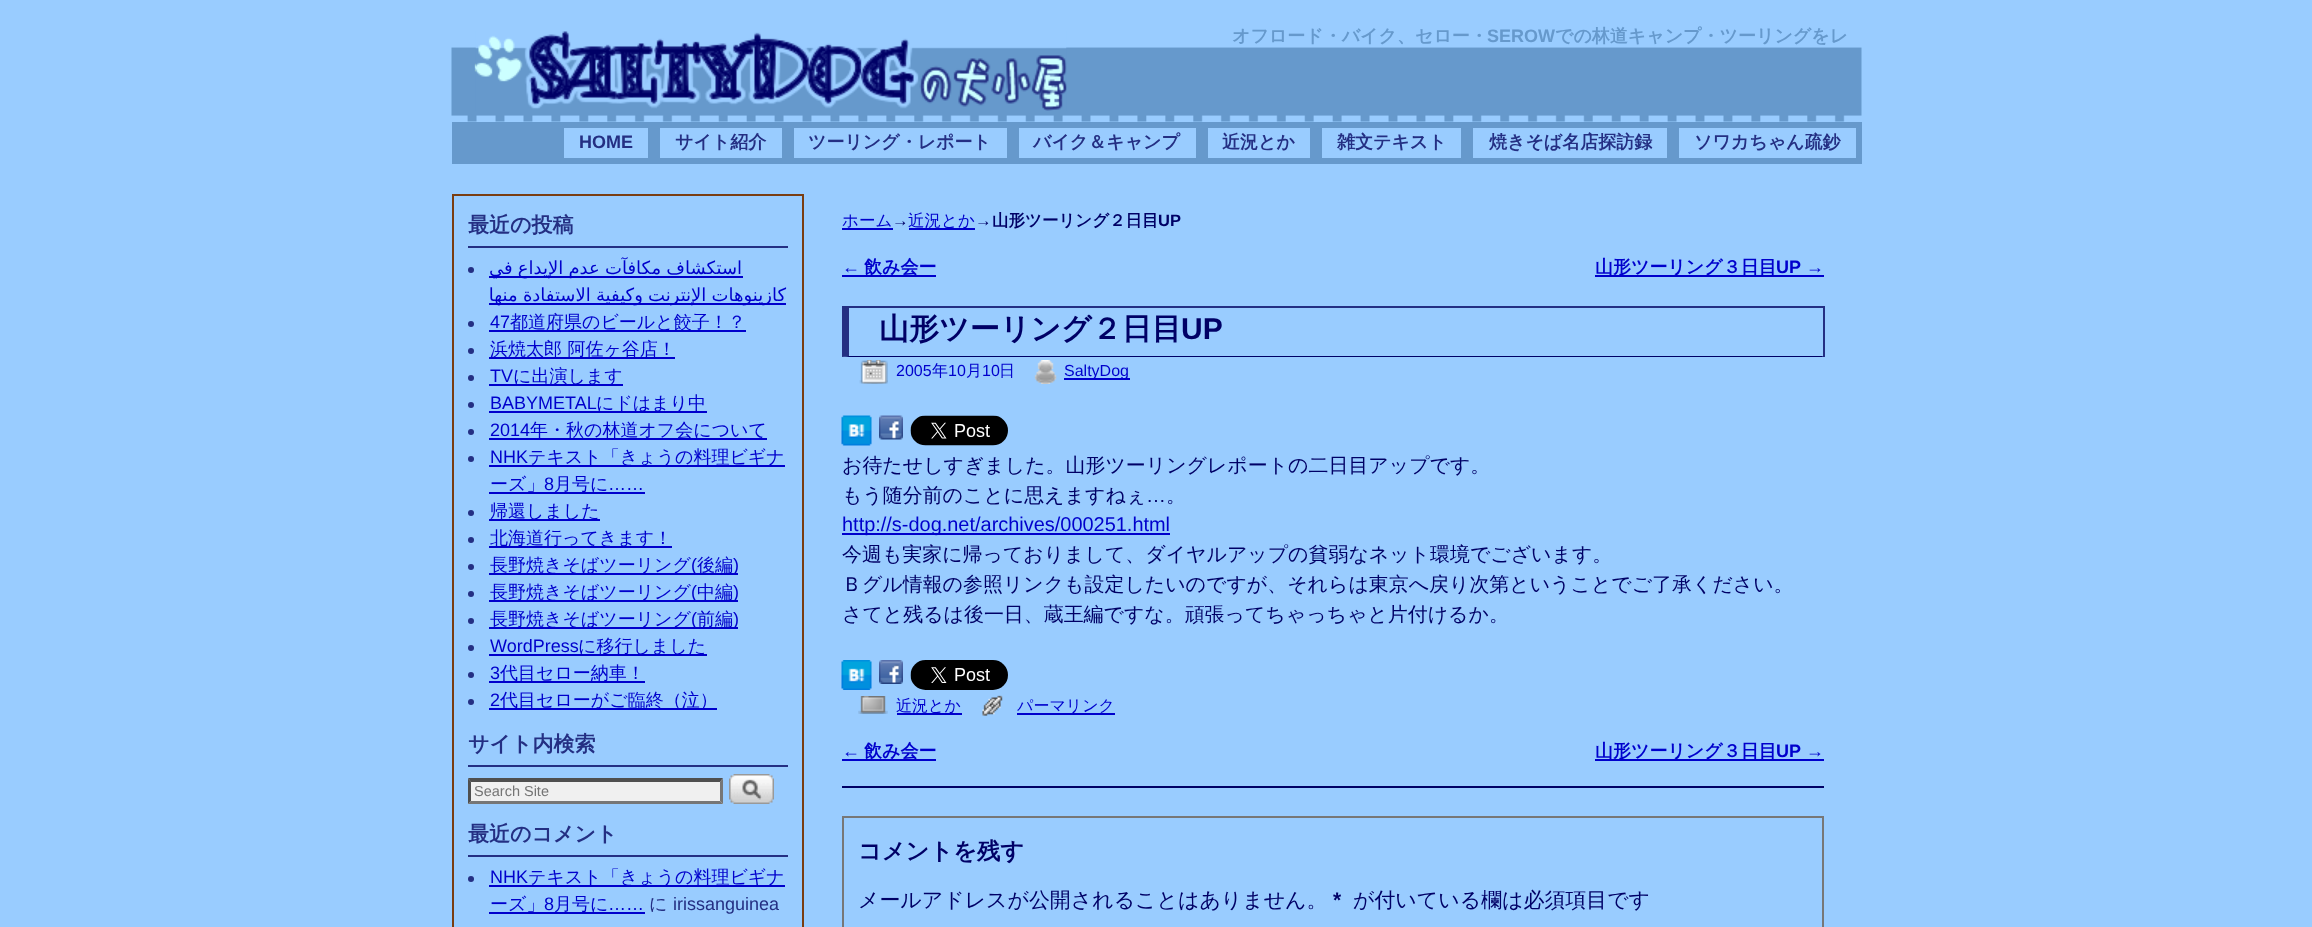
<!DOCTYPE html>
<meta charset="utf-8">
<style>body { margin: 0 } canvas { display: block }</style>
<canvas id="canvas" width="2312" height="927"></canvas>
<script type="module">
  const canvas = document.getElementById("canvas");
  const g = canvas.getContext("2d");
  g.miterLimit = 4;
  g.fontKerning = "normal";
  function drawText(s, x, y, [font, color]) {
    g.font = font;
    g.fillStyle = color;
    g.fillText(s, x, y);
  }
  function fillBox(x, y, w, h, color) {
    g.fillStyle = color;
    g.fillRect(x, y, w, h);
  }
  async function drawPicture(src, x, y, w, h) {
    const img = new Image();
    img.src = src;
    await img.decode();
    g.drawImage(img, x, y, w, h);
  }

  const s1 = ["bold 18px WenQuanYi Zen Hei", "#6699CC"];
  const s2 = ["bold 18px Liberation Sans", "#6699CC"];
  const s3 = ["bold 18px Liberation Sans", "#242F83"];
  const s4 = ["bold 18px WenQuanYi Zen Hei", "#242F83"];
  const s5 = ["bold 21px WenQuanYi Zen Hei", "#242F83"];
  const s6 = ["18px DejaVu Sans", "#0000CC"];
  const s7 = ["18px Liberation Sans", "#0000CC"];
  const s8 = ["500 18px WenQuanYi Zen Hei", "#0000CC"];
  const s9 = ["14.5px Liberation Sans", "#757575"];
  const s10 = ["500 18px WenQuanYi Zen Hei", "#242F83"];
  const s11 = ["18px Liberation Sans", "#242F83"];
  const s12 = ["500 16.5px WenQuanYi Zen Hei", "#0000CC"];
  const s13 = ["16.5px Liberation Sans", "#000066"];
  const s14 = ["bold 16.5px WenQuanYi Zen Hei", "#000066"];
  const s15 = ["bold 16.5px Liberation Sans", "#000066"];
  const s16 = ["bold 18px WenQuanYi Zen Hei", "#0000CC"];
  const s17 = ["bold 18px Liberation Sans", "#0000CC"];
  const s18 = ["bold 30px WenQuanYi Zen Hei", "#000066"];
  const s19 = ["bold 30px Liberation Sans", "#000066"];
  const s20 = ["16px Liberation Sans", "#0000CC"];
  const s21 = ["500 16px WenQuanYi Zen Hei", "#0000CC"];
  const s22 = ["500 19.95px WenQuanYi Zen Hei", "#000066"];
  const s23 = ["19.95px Liberation Sans", "#000066"];
  const s24 = ["19.95px Liberation Sans", "#0000CC"];
  const s25 = ["bold 23.25px WenQuanYi Zen Hei", "#000066"];
  const s26 = ["500 20.95px WenQuanYi Zen Hei", "#000066"];
  const s27 = ["bold 20.95px Liberation Sans", "#000066"];

  fillBox(0, 0, 2312, 927, "#99CCFF");
  await drawPicture("pic2.png", 451, 35, 1411, 87);
  await drawPicture("pic1.png", 475, 31, 592, 80);
  drawText("オフロード・バイク、セロー・", 1232, 42, s1);
  drawText("SEROW", 1487, 42, s2);
  drawText("での林道キャンプ・ツーリングをレ", 1555, 42, s1);
  fillBox(452, 122, 1410, 42, "#6699CC");
  fillBox(564, 128, 84, 30, "#99CCFF");
  drawText("HOME", 579, 148, s3);
  fillBox(660, 128, 122, 30, "#99CCFF");
  drawText("サイト紹介", 675, 148, s4);
  fillBox(794, 128, 213, 30, "#99CCFF");
  drawText("ツーリング・レポート", 808, 148, s4);
  fillBox(1019, 128, 177, 30, "#99CCFF");
  drawText("バイク＆キャンプ", 1033, 148, s4);
  fillBox(1208, 128, 102, 30, "#99CCFF");
  drawText("近況とか", 1222, 148, s4);
  fillBox(1322, 128, 139, 30, "#99CCFF");
  drawText("雑文テキスト", 1337, 148, s4);
  fillBox(1473, 128, 194, 30, "#99CCFF");
  drawText("焼きそば名店探訪録", 1489, 148, s4);
  fillBox(1679, 128, 177, 30, "#99CCFF");
  drawText("ソワカちゃん疏鈔", 1694, 148, s4);
  g.strokeStyle = "#7A3D11";
  g.lineWidth = 2;
  g.strokeRect(453, 195, 350, 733);
  fillBox(468, 246, 320, 2, "#242F83");
  drawText("最近の投稿", 468, 232, s5);
  g.beginPath();
  g.arc(471, 270, 3, 0, Math.PI * 2);
  g.fill();
  fillBox(489, 276, 254, 2, "#0000CC");
  g.wordSpacing = "-0.5px";
  g.direction = "rtl";
  drawText("استكشاف مكافآت عدم الإيداع في", 742, 274, s6);
  fillBox(489, 303, 297, 2, "#0000CC");
  drawText("كازينوهات الإنترنت وكيفية الاستفادة منها", 786, 301, s6);
  g.fillStyle = "#242F83";
  g.beginPath();
  g.arc(471, 324, 3, 0, Math.PI * 2);
  g.fill();
  g.wordSpacing = "0px";
  g.direction = "ltr";
  drawText("47", 490, 328, s7);
  fillBox(489, 330, 257, 2, "#0000CC");
  drawText("都道府県のビールと餃子！？", 510, 328, s8);
  g.fillStyle = "#242F83";
  g.beginPath();
  g.arc(471, 351, 3, 0, Math.PI * 2);
  g.fill();
  fillBox(489, 357, 186, 2, "#0000CC");
  drawText("浜焼太郎 阿佐ヶ谷店！", 490, 355, s8);
  g.fillStyle = "#242F83";
  g.beginPath();
  g.arc(471, 378, 3, 0, Math.PI * 2);
  g.fill();
  drawText("TV", 490, 382, s7);
  fillBox(489, 384, 134, 2, "#0000CC");
  drawText("に出演します", 513, 382, s8);
  g.fillStyle = "#242F83";
  g.beginPath();
  g.arc(471, 405, 3, 0, Math.PI * 2);
  g.fill();
  drawText("BABYMETAL", 490, 409, s7);
  fillBox(489, 411, 218, 2, "#0000CC");
  drawText("にドはまり中", 596, 409, s8);
  g.fillStyle = "#242F83";
  g.beginPath();
  g.arc(471, 432, 3, 0, Math.PI * 2);
  g.fill();
  drawText("2014", 490, 436, s7);
  fillBox(489, 438, 278, 2, "#0000CC");
  drawText("年・秋の林道オフ会について", 530, 436, s8);
  g.fillStyle = "#242F83";
  g.beginPath();
  g.arc(471, 459, 3, 0, Math.PI * 2);
  g.fill();
  drawText("NHK", 490, 463, s7);
  fillBox(489, 465, 296, 2, "#0000CC");
  drawText("テキスト「きょうの料理ビギナ", 528, 463, s8);
  drawText("ーズ」", 490, 490, s8);
  drawText("8", 544, 490, s7);
  fillBox(489, 492, 156, 2, "#0000CC");
  drawText("月号に", 554, 490, s8);
  drawText("……", 608, 490, s7);
  g.fillStyle = "#242F83";
  g.beginPath();
  g.arc(471, 513, 3, 0, Math.PI * 2);
  g.fill();
  fillBox(489, 519, 111, 2, "#0000CC");
  drawText("帰還しました", 490, 517, s8);
  g.fillStyle = "#242F83";
  g.beginPath();
  g.arc(471, 540, 3, 0, Math.PI * 2);
  g.fill();
  fillBox(489, 546, 183, 2, "#0000CC");
  drawText("北海道行ってきます！", 490, 544, s8);
  g.fillStyle = "#242F83";
  g.beginPath();
  g.arc(471, 567, 3, 0, Math.PI * 2);
  g.fill();
  fillBox(489, 573, 249, 2, "#0000CC");
  drawText("長野焼きそばツーリング", 490, 571, s8);
  drawText("(", 691, 571, s7);
  drawText("後編", 697, 571, s8);
  drawText(")", 733, 571, s7);
  g.fillStyle = "#242F83";
  g.beginPath();
  g.arc(471, 594, 3, 0, Math.PI * 2);
  g.fill();
  fillBox(489, 600, 249, 2, "#0000CC");
  drawText("長野焼きそばツーリング", 490, 598, s8);
  drawText("(", 691, 598, s7);
  drawText("中編", 697, 598, s8);
  drawText(")", 733, 598, s7);
  g.fillStyle = "#242F83";
  g.beginPath();
  g.arc(471, 621, 3, 0, Math.PI * 2);
  g.fill();
  fillBox(489, 627, 249, 2, "#0000CC");
  drawText("長野焼きそばツーリング", 490, 625, s8);
  drawText("(", 691, 625, s7);
  drawText("前編", 697, 625, s8);
  drawText(")", 733, 625, s7);
  g.fillStyle = "#242F83";
  g.beginPath();
  g.arc(471, 648, 3, 0, Math.PI * 2);
  g.fill();
  drawText("WordPress", 490, 652, s7);
  fillBox(489, 654, 218, 2, "#0000CC");
  drawText("に移行しました", 578, 652, s8);
  g.fillStyle = "#242F83";
  g.beginPath();
  g.arc(471, 675, 3, 0, Math.PI * 2);
  g.fill();
  drawText("3", 490, 679, s7);
  fillBox(489, 681, 156, 2, "#0000CC");
  drawText("代目セロー納車！", 500, 679, s8);
  g.fillStyle = "#242F83";
  g.beginPath();
  g.arc(471, 702, 3, 0, Math.PI * 2);
  g.fill();
  drawText("2", 490, 706, s7);
  fillBox(489, 708, 228, 2, "#0000CC");
  drawText("代目セローがご臨終（泣）", 500, 706, s8);
  fillBox(468, 765, 320, 2, "#242F83");
  drawText("サイト内検索", 468, 751, s5);
  fillBox(468, 779, 255, 25, "#F0F0F0");
  g.fillStyle = "#4F4F4F";
  g.beginPath();
  g.moveTo(468, 778);
  g.lineTo(723, 778);
  g.lineTo(720, 782);
  g.lineTo(471, 782);
  g.closePath();
  g.fill();
  g.fillStyle = "#767676";
  g.beginPath();
  g.moveTo(723, 778.5);
  g.lineTo(723, 804);
  g.lineTo(720, 801);
  g.lineTo(720, 781.5);
  g.closePath();
  g.fill();
  g.beginPath();
  g.moveTo(723, 804);
  g.lineTo(468, 804);
  g.lineTo(471, 801);
  g.lineTo(720, 801);
  g.closePath();
  g.fill();
  g.fillStyle = "#4F4F4F";
  g.beginPath();
  g.moveTo(468, 804);
  g.lineTo(468, 778.5);
  g.lineTo(471, 781.5);
  g.lineTo(471, 801);
  g.closePath();
  g.fill();
  drawText("Search Site", 474, 796, s9);
  await drawPicture("pic3.png", 729, 774, 45, 30);
  fillBox(468, 855, 320, 2, "#242F83");
  drawText("最近のコメント", 468, 841, s5);
  g.beginPath();
  g.arc(471, 879, 3, 0, Math.PI * 2);
  g.fill();
  drawText("NHK", 490, 883, s7);
  fillBox(489, 885, 296, 2, "#0000CC");
  drawText("テキスト「きょうの料理ビギナ", 528, 883, s8);
  drawText("ーズ」", 490, 910, s8);
  drawText("8", 544, 910, s7);
  fillBox(489, 912, 156, 2, "#0000CC");
  drawText("月号に", 554, 910, s8);
  drawText("……", 608, 910, s7);
  drawText("に", 649, 910, s10);
  drawText("irissanguinea", 673, 910, s11);
  drawText("ホーム", 842, 226, s12);
  drawText("→", 892, 226, s13);
  fillBox(842, 228, 51, 2, "#0000CC");
  fillBox(909, 228, 66, 2, "#0000CC");
  drawText("近況とか", 908, 226, s12);
  drawText("→", 975, 226, s13);
  drawText("山形ツーリング２日目", 992, 226, s14);
  drawText("UP", 1158, 226, s15);
  drawText("←", 842, 273, s7);
  fillBox(842, 275, 94, 2, "#0000CC");
  drawText("飲み会ー", 864, 273, s16);
  fillBox(1595, 275, 229, 2, "#0000CC");
  drawText("山形ツーリング３日目", 1595, 273, s16);
  drawText("UP", 1776, 273, s17);
  drawText("→", 1806, 273, s7);
  fillBox(842, 306, 982, 2, "#242F83");
  fillBox(1823, 306, 2, 51, "#242F83");
  g.fillStyle = "#000066";
  g.beginPath();
  g.moveTo(1824, 357);
  g.lineTo(842, 357);
  g.lineTo(849, 356);
  g.lineTo(1822, 356);
  g.closePath();
  g.fill();
  g.fillStyle = "#242F83";
  g.beginPath();
  g.moveTo(842, 357);
  g.lineTo(842, 306);
  g.lineTo(849, 308);
  g.lineTo(849, 356);
  g.closePath();
  g.fill();
  drawText("山形ツーリング２日目", 879, 339, s18);
  drawText("UP", 1181, 339, s19);
  await drawPicture("pic4.png", 859, 360, 29, 24);
  drawText("2005", 896, 376, s20);
  drawText("年", 932, 376, s21);
  drawText("10", 948, 376, s20);
  drawText("月", 966, 376, s21);
  drawText("10", 982, 376, s20);
  drawText("日", 999, 376, s21);
  await drawPicture("pic5.png", 1034, 360, 23, 24);
  fillBox(1064, 378, 66, 2, "#0000CC");
  drawText("SaltyDog", 1064, 376, s20);
  await drawPicture("pic6.png", 841, 415, 31, 31);
  await drawPicture("pic7.png", 879, 415, 24, 25);
  await drawPicture("pic8.png", 910, 415, 98, 31);
  drawText("お待たせしすぎました。山形ツーリングレポートの二日目アップです。", 842, 472, s22);
  drawText("もう随分前のことに思えますねぇ", 842, 502, s22);
  drawText("…", 1146, 502, s23);
  drawText("。", 1166, 502, s22);
  fillBox(842, 533, 328, 2, "#0000CC");
  drawText("http://s-dog.net/archives/000251.html", 842, 531, s24);
  drawText("今週も実家に帰っておりまして、ダイヤルアップの貧弱なネット環境でございます。", 842, 561, s22);
  drawText("Ｂグル情報の参照リンクも設定したいのですが、それらは東京へ戻り次第ということでご了承ください。", 842, 591, s22);
  drawText("さてと残るは後一日、蔵王編ですな。頑張ってちゃっちゃと片付けるか。", 842, 621, s22);
  await drawPicture("pic9.png", 841, 660, 31, 30);
  await drawPicture("pic10.png", 879, 660, 24, 24);
  await drawPicture("pic11.png", 910, 660, 98, 30);
  await drawPicture("pic12.png", 858, 696, 30, 18);
  fillBox(897, 713, 65, 2, "#0000CC");
  drawText("近況とか", 896, 711, s21);
  await drawPicture("pic13.png", 982, 695, 21, 21);
  fillBox(1017, 713, 98, 2, "#0000CC");
  drawText("パーマリンク", 1017, 711, s21);
  drawText("←", 842, 757, s7);
  fillBox(842, 759, 94, 2, "#0000CC");
  drawText("飲み会ー", 864, 757, s16);
  fillBox(1595, 759, 229, 2, "#0000CC");
  drawText("山形ツーリング３日目", 1595, 757, s16);
  drawText("UP", 1776, 757, s17);
  drawText("→", 1806, 757, s7);
  fillBox(842, 786, 982, 2, "#000066");
  g.strokeStyle = "#777777";
  g.strokeRect(843, 817, 980, 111);
  drawText("コメントを残す", 858, 859, s25);
  drawText("メールアドレスが公開されることはありません。", 858, 907, s26);
  drawText("*", 1333, 907, s27);
  drawText("が付いている欄は必須項目です", 1353, 907, s26);
</script>
